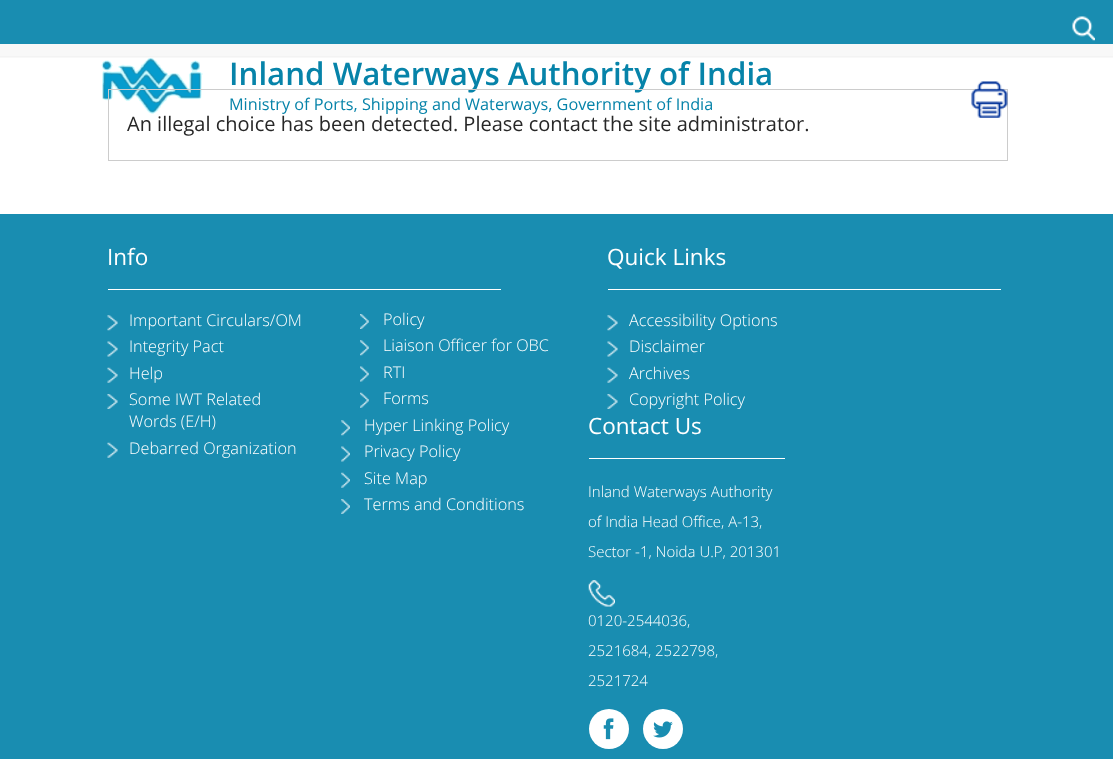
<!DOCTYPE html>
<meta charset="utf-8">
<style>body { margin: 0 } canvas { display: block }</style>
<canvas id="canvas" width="1113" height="759"></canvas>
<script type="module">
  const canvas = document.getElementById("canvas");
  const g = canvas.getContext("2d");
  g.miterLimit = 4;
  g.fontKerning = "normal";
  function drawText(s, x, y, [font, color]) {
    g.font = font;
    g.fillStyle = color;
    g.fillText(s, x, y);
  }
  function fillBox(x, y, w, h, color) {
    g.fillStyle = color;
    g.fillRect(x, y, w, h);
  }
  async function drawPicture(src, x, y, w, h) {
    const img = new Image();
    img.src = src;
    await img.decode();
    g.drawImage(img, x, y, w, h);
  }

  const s1 = ["600 31.25px Open Sans", "#0683A9"];
  const s2 = ["16.25px Open Sans", "#0683A9"];
  const s3 = ["20px Open Sans", "#272727"];
  const s4 = ["22.5px Open Sans", "#FFFFFF"];
  const s5 = ["300 16.25px Open Sans", "#FFFFFF"];
  const s6 = ["300 15px Open Sans", "#FFFFFF"];

  fillBox(0, 0, 1113, 759, "#FFFFFF");
  fillBox(0, 44, 1113, 14, "#F8F8F8");
  fillBox(0, 56, 1113, 1, "#F3F3F3");
  fillBox(0, 0, 1113, 44, "#198DB1");
  await drawPicture("pic1.png", 1072, 16, 23, 25);
  await drawPicture("pic2.png", 101, 58, 102, 56);
  drawText("Inland Waterways Authority of India", 229, 85, s1);
  drawText("Ministry of Ports, Shipping and Waterways, Government of India", 229, 110, s2);
  g.strokeStyle = "#CCCCCC";
  g.strokeRect(108.5, 89.5, 899, 71);
  await drawPicture("pic3.png", 971, 81, 37, 37);
  drawText("An illegal choice has been detected. Please contact the site administrator.", 127, 131, s3);
  fillBox(0, 214, 1113, 545, "#198DB1");
  fillBox(108, 289, 393, 1, "#FFFFFF");
  drawText("Info", 107, 265, s4);
  await drawPicture("pic4.png", 107, 315, 11, 16);
  drawText("Important Circulars/OM", 129, 326, s5);
  await drawPicture("pic5.png", 107, 341, 11, 16);
  drawText("Integrity Pact", 129, 352, s5);
  await drawPicture("pic6.png", 107, 367, 11, 16);
  drawText("Help", 129, 379, s5);
  await drawPicture("pic7.png", 107, 394, 11, 15);
  drawText("Some IWT Related", 129, 405, s5);
  drawText("Words (E/H)", 129, 427, s5);
  await drawPicture("pic6.png", 107, 442, 11, 16);
  drawText("Debarred Organization", 129, 454, s5);
  await drawPicture("pic8.png", 360, 314, 9, 15);
  drawText("Policy", 383, 325, s5);
  await drawPicture("pic9.png", 360, 340, 9, 16);
  drawText("Liaison Officer for OBC", 383, 351, s5);
  await drawPicture("pic10.png", 360, 366, 9, 16);
  drawText("RTI", 383, 378, s5);
  await drawPicture("pic11.png", 360, 392, 9, 16);
  drawText("Forms", 383, 404, s5);
  fillBox(608, 289, 393, 1, "#FFFFFF");
  drawText("Quick Links", 607, 265, s4);
  await drawPicture("pic4.png", 607, 315, 11, 16);
  drawText("Accessibility Options", 629, 326, s5);
  await drawPicture("pic5.png", 607, 341, 11, 16);
  drawText("Disclaimer", 629, 352, s5);
  await drawPicture("pic6.png", 607, 367, 11, 16);
  drawText("Archives", 629, 379, s5);
  await drawPicture("pic7.png", 607, 394, 11, 15);
  drawText("Copyright Policy", 629, 405, s5);
  await drawPicture("pic12.png", 341, 420, 9, 16);
  drawText("Hyper Linking Policy", 364, 431, s5);
  await drawPicture("pic13.png", 341, 446, 9, 16);
  drawText("Privacy Policy", 364, 457, s5);
  await drawPicture("pic14.png", 341, 472, 9, 16);
  drawText("Site Map", 364, 484, s5);
  await drawPicture("pic15.png", 341, 499, 9, 15);
  drawText("Terms and Conditions", 364, 510, s5);
  fillBox(589, 458, 196, 1, "#FFFFFF");
  drawText("Contact Us", 588, 434, s4);
  drawText("Inland Waterways Authority", 588, 497, s6);
  drawText("of India Head Office, A-13,", 588, 527, s6);
  drawText("Sector -1, Noida U.P, 201301", 588, 557, s6);
  await drawPicture("pic16.png", 588, 580, 27, 27);
  drawText("0120-2544036,", 588, 626, s6);
  drawText("2521684, 2522798,", 588, 656, s6);
  drawText("2521724", 588, 686, s6);
  g.beginPath();
  g.arc(609, 729, 20, 0, Math.PI * 2);
  g.fill();
  await drawPicture("pic17.png", 603, 718, 11, 22);
  g.beginPath();
  g.arc(663, 729, 20, 0, Math.PI * 2);
  g.fill();
  await drawPicture("pic18.png", 653, 721, 20, 17);
</script>
